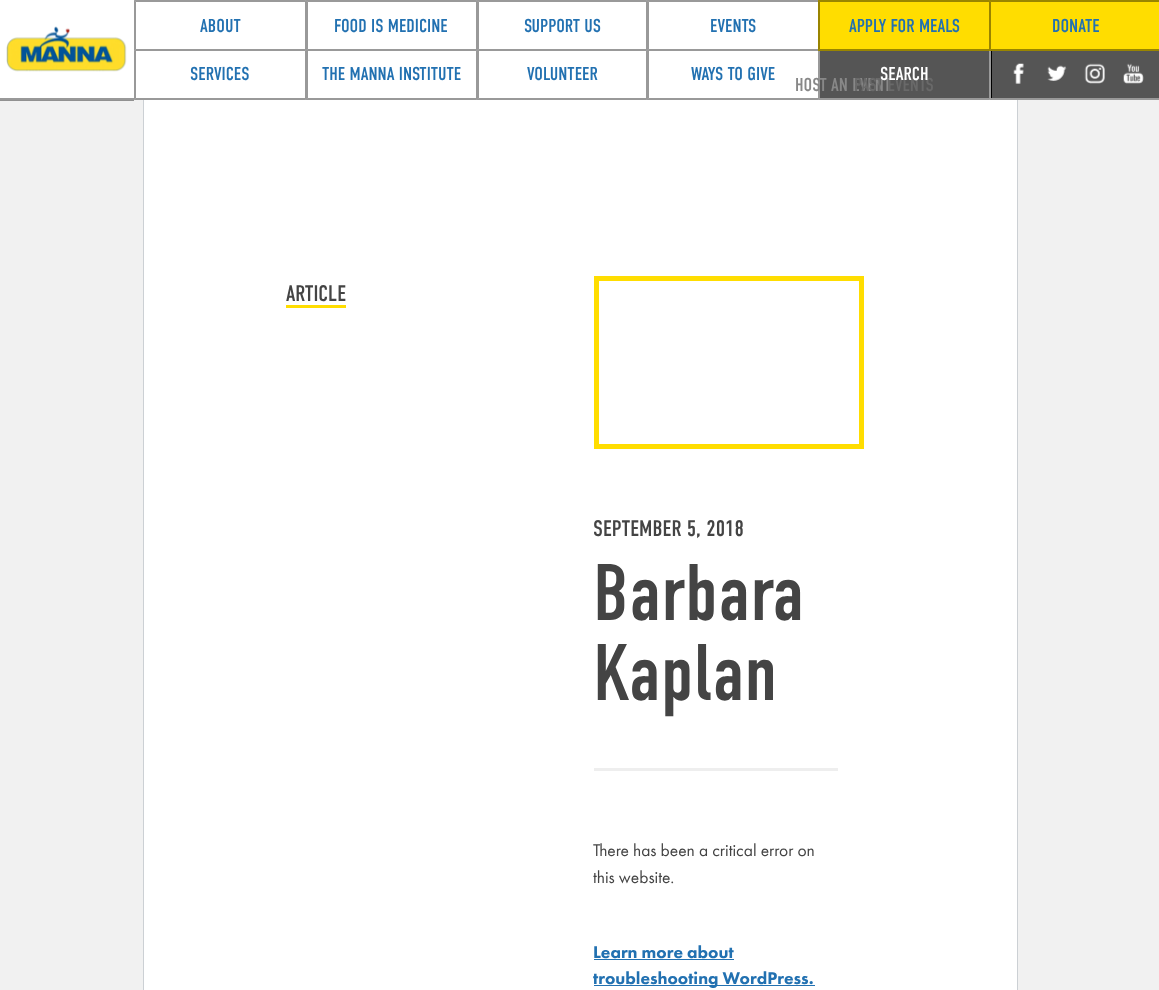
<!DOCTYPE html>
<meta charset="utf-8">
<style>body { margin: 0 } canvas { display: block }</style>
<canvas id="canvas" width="1159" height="990"></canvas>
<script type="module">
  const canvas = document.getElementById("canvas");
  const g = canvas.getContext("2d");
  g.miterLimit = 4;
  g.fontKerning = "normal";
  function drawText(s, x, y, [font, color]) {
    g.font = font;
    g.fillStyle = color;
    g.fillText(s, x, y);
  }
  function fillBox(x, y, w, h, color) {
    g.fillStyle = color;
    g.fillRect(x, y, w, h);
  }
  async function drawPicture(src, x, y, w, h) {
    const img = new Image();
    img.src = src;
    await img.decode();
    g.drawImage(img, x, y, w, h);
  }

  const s1 = ["18.75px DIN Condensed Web", "#2271B1"];
  const s2 = ["18.75px DIN Condensed Web", "#888888"];
  const s3 = ["18.75px DIN Condensed Web", "#696969"];
  const s4 = ["18.75px DIN Condensed Web", "#FFFFFF"];
  const s5 = ["22.5px DIN Condensed Web", "#444444"];
  const s6 = ["80px DIN Condensed Web", "#444444"];
  const s7 = ["17.5px Futura PT", "#444444"];
  const s8 = ["900 17.5px Futura PT", "#2271B1"];

  fillBox(0, 0, 1159, 990, "#F1F1F1");
  fillBox(0, 100, 134, 1, "#919191");
  fillBox(144, 100, 873, 890, "#FFFFFF");
  g.strokeStyle = "#CCD0D4";
  g.strokeRect(143.5, 63.5, 874, 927);
  fillBox(0, 0, 134, 98, "#FFFFFF");
  fillBox(0, 98, 134, 2, "#999999");
  await drawPicture("pic1.png", 6, 26, 121, 46);
  fillBox(134, 0, 857, 100, "#FFFFFF");
  g.fillStyle = "#999999";
  g.beginPath();
  g.moveTo(134, 0);
  g.lineTo(305, 0);
  g.lineTo(305, 2);
  g.lineTo(136, 2);
  g.closePath();
  g.fill();
  g.beginPath();
  g.moveTo(305, 51);
  g.lineTo(134, 51);
  g.lineTo(136, 49);
  g.lineTo(305, 49);
  g.closePath();
  g.fill();
  g.fillStyle = "rgba(0, 0, 0, 0.4)";
  g.beginPath();
  g.moveTo(134, 51);
  g.lineTo(134, 0);
  g.lineTo(136, 2);
  g.lineTo(136, 49);
  g.closePath();
  g.fill();
  drawText("ABOUT", 200, 32, s1);
  g.fillStyle = "#999999";
  g.beginPath();
  g.moveTo(305, 100);
  g.lineTo(134, 100);
  g.lineTo(136, 98);
  g.lineTo(305, 98);
  g.closePath();
  g.fill();
  g.fillStyle = "rgba(0, 0, 0, 0.4)";
  g.beginPath();
  g.moveTo(134, 100);
  g.lineTo(134, 51);
  g.lineTo(136, 51);
  g.lineTo(136, 98);
  g.closePath();
  g.fill();
  drawText("SERVICES", 190, 80, s1);
  g.fillStyle = "#999999";
  g.beginPath();
  g.moveTo(305, 0);
  g.lineTo(476, 0);
  g.lineTo(476, 2);
  g.lineTo(308, 2);
  g.closePath();
  g.fill();
  g.beginPath();
  g.moveTo(476, 51);
  g.lineTo(305, 51);
  g.lineTo(308, 49);
  g.lineTo(476, 49);
  g.closePath();
  g.fill();
  g.fillStyle = "rgba(0, 0, 0, 0.4)";
  g.beginPath();
  g.moveTo(305, 51);
  g.lineTo(305, 0);
  g.lineTo(308, 2);
  g.lineTo(308, 49);
  g.closePath();
  g.fill();
  drawText("FOOD IS MEDICINE", 334, 32, s1);
  g.fillStyle = "#999999";
  g.beginPath();
  g.moveTo(476, 100);
  g.lineTo(305, 100);
  g.lineTo(308, 98);
  g.lineTo(476, 98);
  g.closePath();
  g.fill();
  g.fillStyle = "rgba(0, 0, 0, 0.4)";
  g.beginPath();
  g.moveTo(305, 100);
  g.lineTo(305, 51);
  g.lineTo(308, 51);
  g.lineTo(308, 98);
  g.closePath();
  g.fill();
  drawText("THE MANNA INSTITUTE", 322, 80, s1);
  g.fillStyle = "#999999";
  g.beginPath();
  g.moveTo(476, 0);
  g.lineTo(646, 0);
  g.lineTo(646, 2);
  g.lineTo(479, 2);
  g.closePath();
  g.fill();
  g.beginPath();
  g.moveTo(646, 51);
  g.lineTo(476, 51);
  g.lineTo(479, 49);
  g.lineTo(646, 49);
  g.closePath();
  g.fill();
  g.fillStyle = "rgba(0, 0, 0, 0.4)";
  g.beginPath();
  g.moveTo(476, 51);
  g.lineTo(476, 0);
  g.lineTo(479, 2);
  g.lineTo(479, 49);
  g.closePath();
  g.fill();
  drawText("SUPPORT US", 524, 32, s1);
  g.fillStyle = "#999999";
  g.beginPath();
  g.moveTo(989, 100);
  g.lineTo(818, 100);
  g.lineTo(820, 98);
  g.lineTo(989, 98);
  g.closePath();
  g.fill();
  g.fillStyle = "rgba(0, 0, 0, 0.4)";
  g.beginPath();
  g.moveTo(818, 100);
  g.lineTo(818, 51);
  g.lineTo(820, 51);
  g.lineTo(820, 98);
  g.closePath();
  g.fill();
  fillBox(820, 51, 169, 47, "#555555");
  drawText("HOST AN EVENT", 795, 91, s2);
  g.fillStyle = "#999999";
  g.beginPath();
  g.moveTo(646, 100);
  g.lineTo(476, 100);
  g.lineTo(479, 98);
  g.lineTo(646, 98);
  g.closePath();
  g.fill();
  g.fillStyle = "rgba(0, 0, 0, 0.4)";
  g.beginPath();
  g.moveTo(476, 100);
  g.lineTo(476, 51);
  g.lineTo(479, 51);
  g.lineTo(479, 98);
  g.closePath();
  g.fill();
  drawText("VOLUNTEER", 527, 80, s1);
  g.fillStyle = "#999999";
  g.beginPath();
  g.moveTo(646, 0);
  g.lineTo(818, 0);
  g.lineTo(818, 2);
  g.lineTo(649, 2);
  g.closePath();
  g.fill();
  g.beginPath();
  g.moveTo(818, 51);
  g.lineTo(646, 51);
  g.lineTo(649, 49);
  g.lineTo(818, 49);
  g.closePath();
  g.fill();
  g.fillStyle = "rgba(0, 0, 0, 0.4)";
  g.beginPath();
  g.moveTo(646, 51);
  g.lineTo(646, 0);
  g.lineTo(649, 2);
  g.lineTo(649, 49);
  g.closePath();
  g.fill();
  drawText("EVENTS", 710, 32, s1);
  drawText("PAST EVENTS", 854, 91, s3);
  g.fillStyle = "#999999";
  g.beginPath();
  g.moveTo(818, 100);
  g.lineTo(646, 100);
  g.lineTo(649, 98);
  g.lineTo(818, 98);
  g.closePath();
  g.fill();
  g.fillStyle = "rgba(0, 0, 0, 0.4)";
  g.beginPath();
  g.moveTo(646, 100);
  g.lineTo(646, 51);
  g.lineTo(649, 51);
  g.lineTo(649, 98);
  g.closePath();
  g.fill();
  drawText("WAYS TO GIVE", 691, 80, s1);
  fillBox(818, 0, 341, 51, "#FFDD00");
  g.fillStyle = "#998500";
  g.beginPath();
  g.moveTo(818, 0);
  g.lineTo(989, 0);
  g.lineTo(989, 2);
  g.lineTo(820, 2);
  g.closePath();
  g.fill();
  g.beginPath();
  g.moveTo(989, 51);
  g.lineTo(818, 51);
  g.lineTo(820, 49);
  g.lineTo(989, 49);
  g.closePath();
  g.fill();
  g.fillStyle = "rgba(0, 0, 0, 0.4)";
  g.beginPath();
  g.moveTo(818, 51);
  g.lineTo(818, 0);
  g.lineTo(820, 2);
  g.lineTo(820, 49);
  g.closePath();
  g.fill();
  drawText("APPLY FOR MEALS", 849, 32, s1);
  drawText("SEARCH", 880, 80, s4);
  g.fillStyle = "#998500";
  g.beginPath();
  g.moveTo(989, 0);
  g.lineTo(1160, 0);
  g.lineTo(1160, 2);
  g.lineTo(991, 2);
  g.closePath();
  g.fill();
  g.beginPath();
  g.moveTo(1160, 51);
  g.lineTo(989, 51);
  g.lineTo(991, 49);
  g.lineTo(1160, 49);
  g.closePath();
  g.fill();
  g.fillStyle = "rgba(0, 0, 0, 0.4)";
  g.beginPath();
  g.moveTo(989, 51);
  g.lineTo(989, 0);
  g.lineTo(991, 2);
  g.lineTo(991, 49);
  g.closePath();
  g.fill();
  drawText("DONATE", 1052, 32, s1);
  g.fillStyle = "#999999";
  g.beginPath();
  g.moveTo(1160, 100);
  g.lineTo(989, 100);
  g.lineTo(991, 98);
  g.lineTo(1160, 98);
  g.closePath();
  g.fill();
  g.fillStyle = "rgba(0, 0, 0, 0.4)";
  g.beginPath();
  g.moveTo(989, 100);
  g.lineTo(989, 51);
  g.lineTo(991, 51);
  g.lineTo(991, 98);
  g.closePath();
  g.fill();
  fillBox(992, 51, 167, 47, "#555555");
  fillBox(991, 51, 1, 47, "#000000");
  await drawPicture("pic2.png", 1013, 63, 11, 21);
  await drawPicture("pic3.png", 1047, 65, 20, 16);
  await drawPicture("pic4.png", 1084, 63, 21, 21);
  await drawPicture("pic5.png", 1123, 63, 21, 21);
  drawText("ARTICLE", 286, 301, s5);
  fillBox(286, 305, 60, 3, "#FFDD00");
  g.strokeStyle = "#FFDD00";
  g.lineWidth = 5;
  g.strokeRect(596.5, 278.5, 265, 168);
  drawText("SEPTEMBER 5, 2018", 593, 536, s5);
  drawText("Barbara", 593, 620, s6);
  drawText("Kaplan", 593, 700, s6);
  fillBox(594, 768, 244, 3, "#EEEEEE");
  drawText("There has been a critical error on", 593, 856, s7);
  drawText("this website.", 593, 883, s7);
  drawText("Learn more about", 593, 958, s8);
  fillBox(594, 959, 140, 1, "#2271B1");
  fillBox(594, 985, 221, 1, "#2271B1");
  drawText("troubleshooting WordPress.", 593, 984, s8);
</script>
